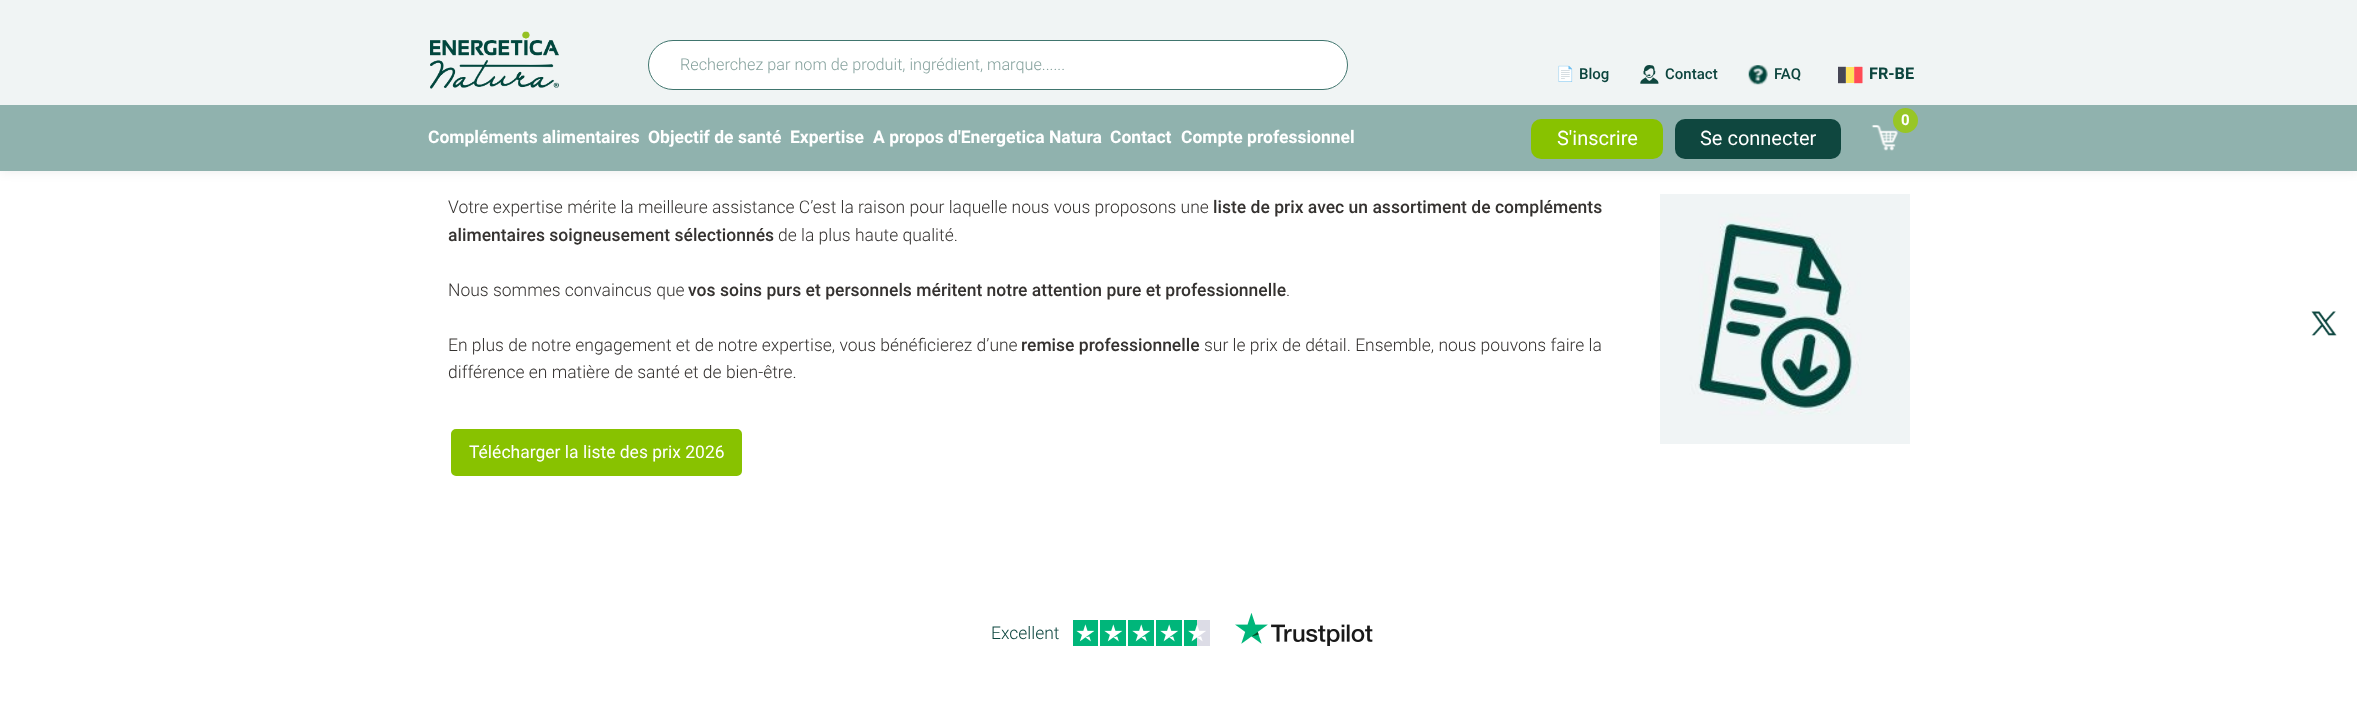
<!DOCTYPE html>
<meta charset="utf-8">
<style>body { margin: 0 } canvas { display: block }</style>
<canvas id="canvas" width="2357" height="714"></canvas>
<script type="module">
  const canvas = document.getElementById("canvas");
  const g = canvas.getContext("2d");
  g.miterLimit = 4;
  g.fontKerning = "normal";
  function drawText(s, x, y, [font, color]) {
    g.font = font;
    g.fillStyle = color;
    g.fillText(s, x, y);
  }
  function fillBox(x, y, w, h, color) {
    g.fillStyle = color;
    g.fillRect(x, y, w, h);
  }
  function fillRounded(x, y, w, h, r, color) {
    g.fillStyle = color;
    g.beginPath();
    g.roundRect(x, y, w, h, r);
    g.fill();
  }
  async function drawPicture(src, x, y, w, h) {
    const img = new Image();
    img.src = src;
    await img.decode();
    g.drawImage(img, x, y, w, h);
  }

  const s1 = ["300 16.25px Roboto", "#86A29E"];
  const s2 = ["15px Noto Color Emoji", "#0C453E"];
  const s3 = ["500 15px Roboto", "#0C453E"];
  const s4 = ["bold 16.25px Roboto", "#0C453E"];
  const s5 = ["bold 15px Roboto", "#FFFFFF"];
  const s6 = ["bold 17.5px Roboto", "#FFFFFF"];
  const s7 = ["20px Roboto", "#FFFFFF"];
  const s8 = ["300 17.5px Roboto", "#353230"];
  const s9 = ["500 17.5px Roboto", "#353230"];
  const s10 = ["17.5px Roboto", "#FFFFFF"];
  const s11 = ["300 17.5px Roboto", "#0C453E"];

  fillBox(0, 0, 2357, 714, "#FFFFFF");
  g.fillStyle = "rgba(0, 0, 0, 0.08)";
  g.filter = "blur(6px)";
  g.beginPath();
  g.rect(0, 0, 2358, 171);
  g.fill();
  g.filter = "none";
  fillBox(0, 0, 2357, 105, "#F0F4F4");
  await drawPicture("pic1.png", 430, 31, 129, 58);
  g.fillStyle = "#FFFFFF";
  g.beginPath();
  g.roundRect(648.5, 40.5, 699, 49, 24.5);
  g.fill();
  g.strokeStyle = "#40756E";
  g.stroke();
  drawText("Recherchez par nom de produit, ingrédient, marque......", 680, 70, s1);
  drawText("📄", 1556, 79, s2);
  drawText("Blog", 1579, 79, s3);
  await drawPicture("pic2.png", 1640, 65, 19, 19);
  drawText("Contact", 1665, 79, s3);
  await drawPicture("pic3.png", 1748, 65, 20, 20);
  drawText("FAQ", 1774, 79, s3);
  await drawPicture("pic4.png", 1838, 66, 25, 18);
  drawText("FR-BE", 1869, 79, s4);
  fillBox(0, 105, 2357, 66, "#90B2AE");
  await drawPicture("pic5.png", 1871, 125, 27, 26);
  g.fillStyle = "#98C626";
  g.beginPath();
  g.arc(1905.5, 120.5, 12.5, 0, Math.PI * 2);
  g.fill();
  drawText("0", 1901, 125, s5);
  drawText("Compléments alimentaires", 428, 143, s6);
  drawText("Objectif de santé", 648, 143, s6);
  drawText("Expertise", 790, 143, s6);
  drawText("A propos d'Energetica Natura", 873, 143, s6);
  drawText("Contact", 1110, 143, s6);
  drawText("Compte professionnel", 1181, 143, s6);
  fillRounded(1531, 119, 132, 40, 10, "#88C200");
  drawText("S'inscrire", 1557, 145, s7);
  fillRounded(1675, 119, 166, 40, 10, "#0F473F");
  drawText("Se connecter", 1700, 145, s7);
  drawText("Votre expertise mérite la meilleure assistance C’est la raison pour laquelle nous vous proposons une", 448, 213, s8);
  drawText("liste de prix avec un assortiment de compléments", 1213, 213, s9);
  await drawPicture("pic6.png", 1660, 194, 250, 250);
  drawText("alimentaires soigneusement sélectionnés", 448, 241, s9);
  drawText("de la plus haute qualité.", 778, 241, s8);
  drawText("Nous sommes convaincus que", 448, 296, s8);
  drawText("vos soins purs et personnels méritent notre attention pure et professionnelle", 688, 296, s9);
  drawText(".", 1286, 296, s8);
  drawText("En plus de notre engagement et de notre expertise, vous bénéficierez d’une", 448, 351, s8);
  drawText("remise professionnelle", 1021, 351, s9);
  drawText("sur le prix de détail. Ensemble, nous pouvons faire la", 1204, 351, s8);
  drawText("différence en matière de santé et de bien-être.", 448, 378, s8);
  g.fillStyle = "#88C200";
  g.beginPath();
  g.roundRect(449.5, 427.5, 294, 50, 6.5);
  g.fill();
  g.strokeStyle = "#FFFFFF";
  g.lineWidth = 3;
  g.stroke();
  drawText("Télécharger la liste des prix 2026", 469, 458, s10);
  await drawPicture("pic7.png", 2311, 311, 26, 25);
  drawText("Excellent", 991, 639, s11);
  await drawPicture("pic8.png", 1073, 620, 137, 26);
  await drawPicture("pic9.png", 1235, 613, 138, 33);
</script>
